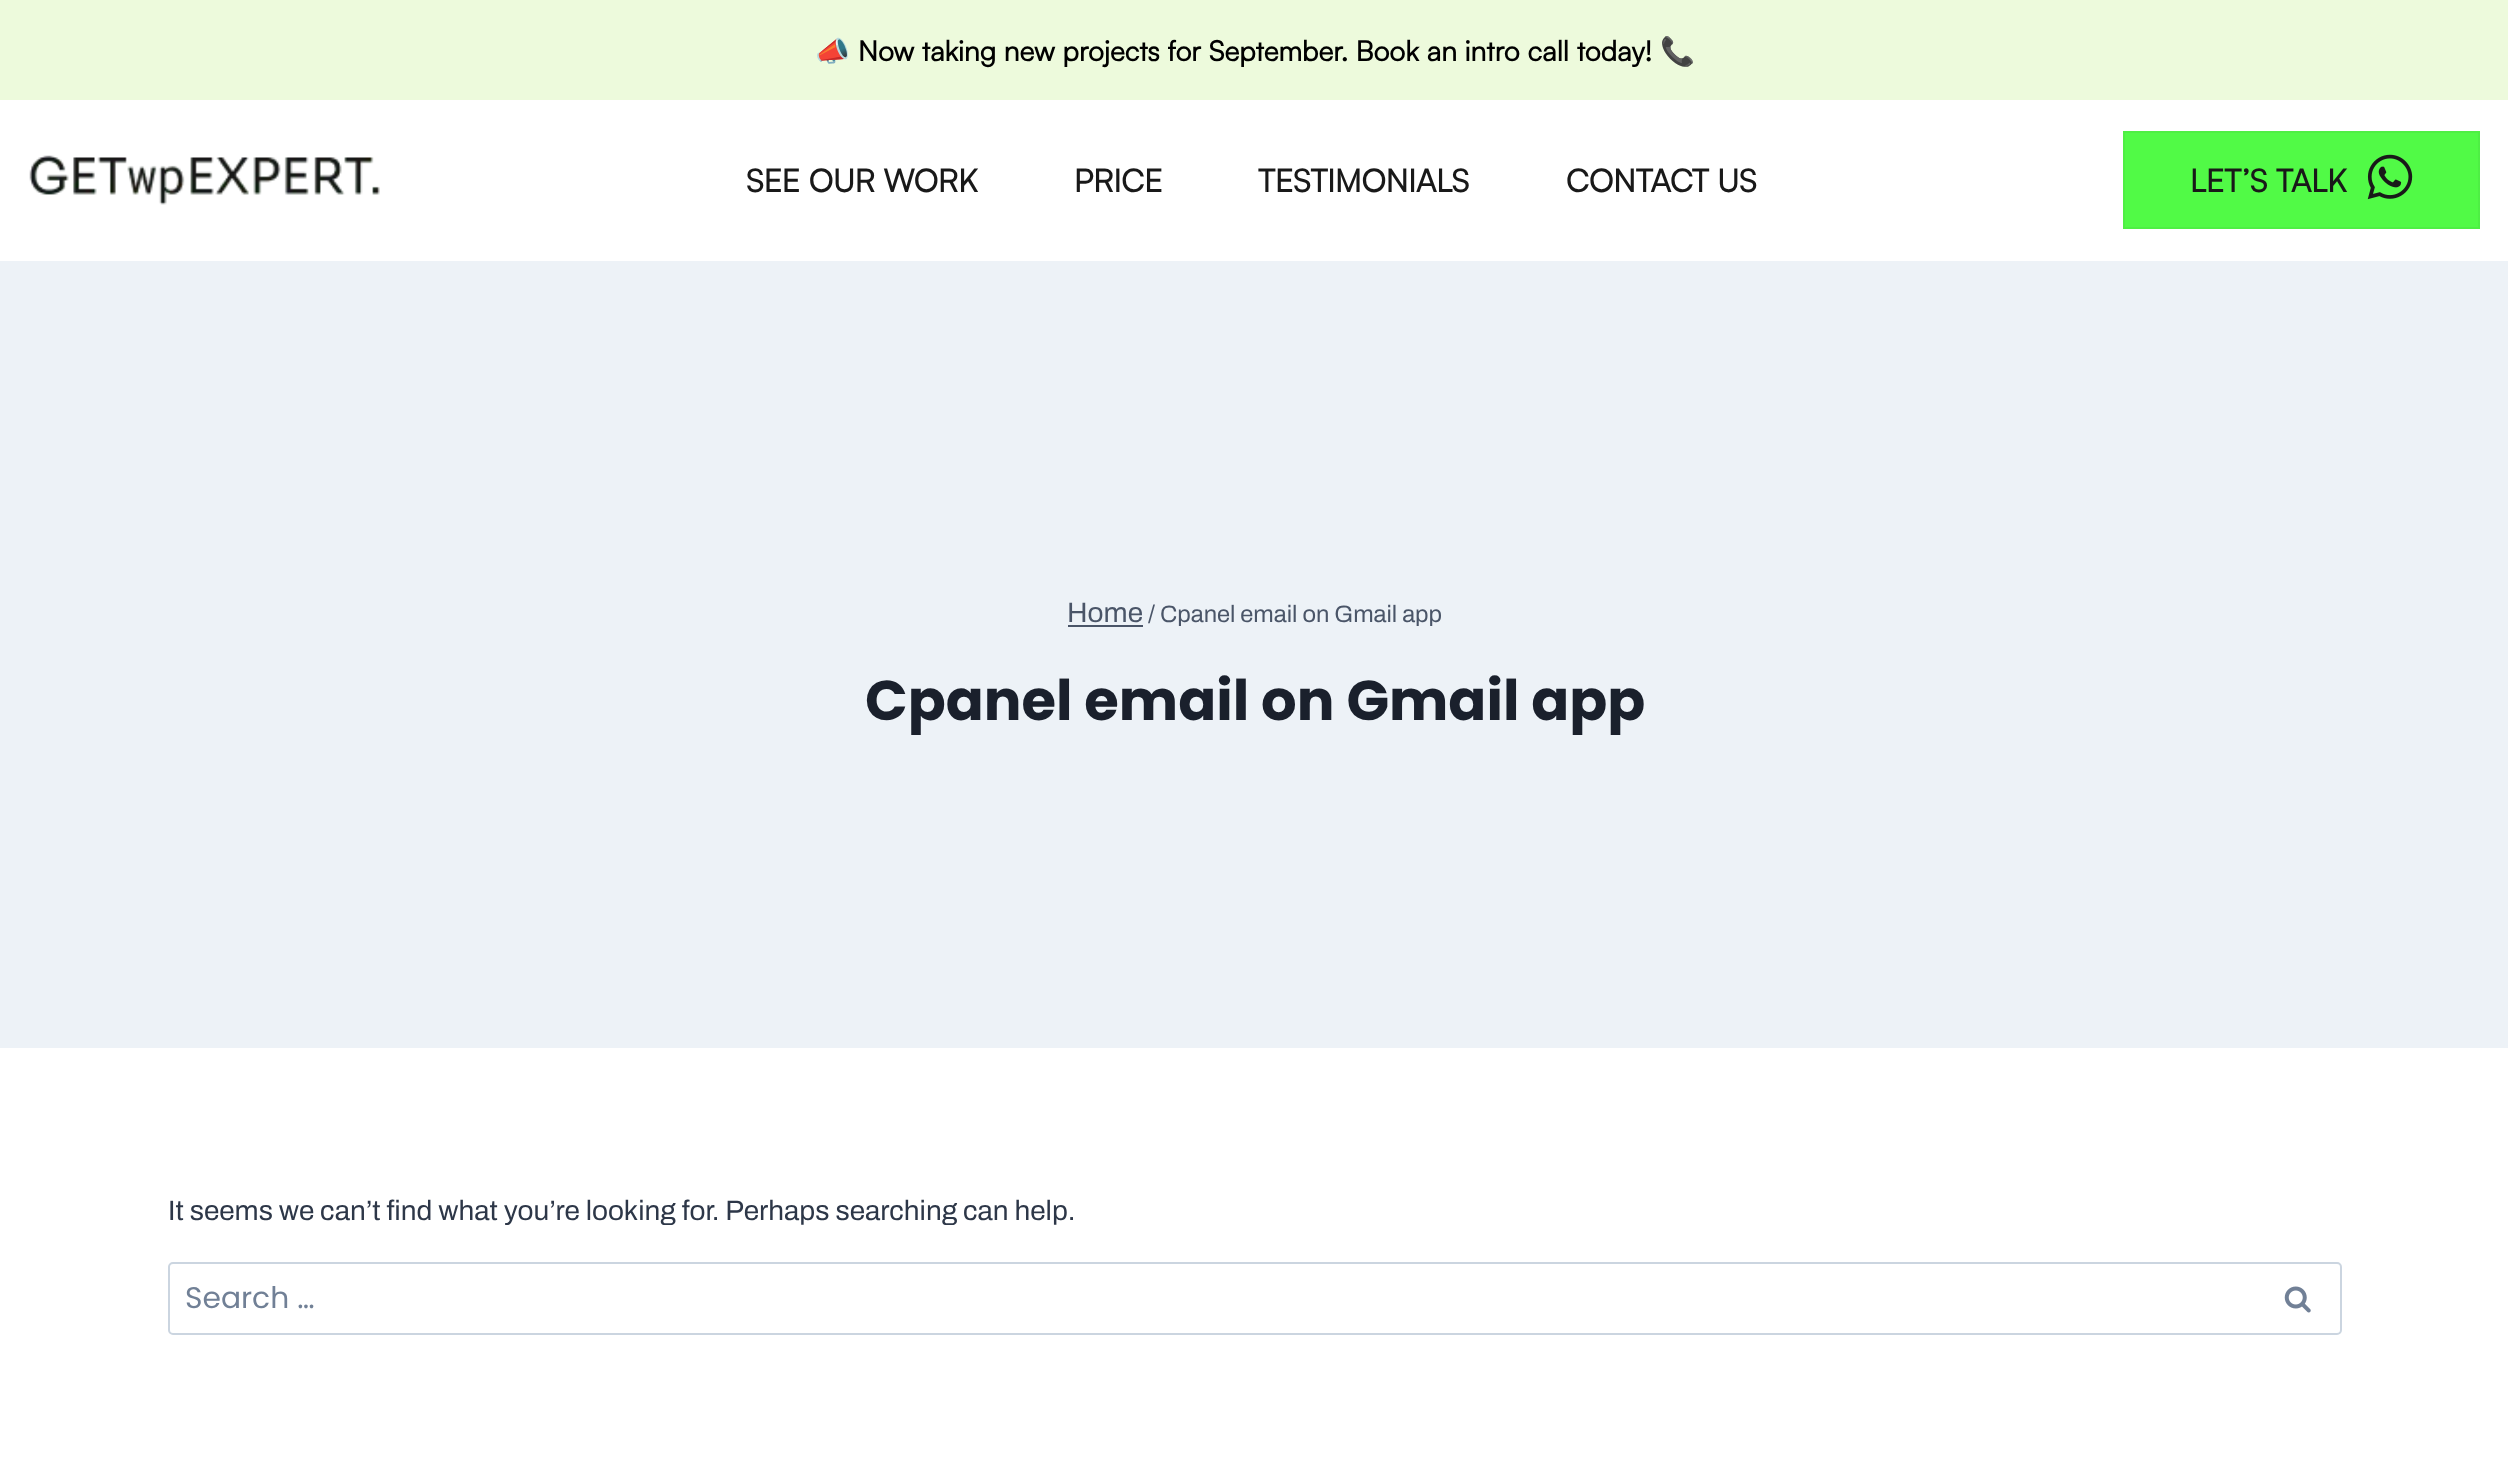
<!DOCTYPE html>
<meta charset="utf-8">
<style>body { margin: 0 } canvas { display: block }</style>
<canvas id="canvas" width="2508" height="1462"></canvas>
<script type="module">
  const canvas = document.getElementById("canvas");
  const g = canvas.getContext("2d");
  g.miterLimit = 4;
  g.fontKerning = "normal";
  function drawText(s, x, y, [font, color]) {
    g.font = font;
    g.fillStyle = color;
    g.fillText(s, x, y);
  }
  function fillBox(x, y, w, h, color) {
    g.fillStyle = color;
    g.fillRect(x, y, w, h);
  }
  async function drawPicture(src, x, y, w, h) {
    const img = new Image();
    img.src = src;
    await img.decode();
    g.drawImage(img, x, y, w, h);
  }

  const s1 = ["bold 28px Noto Color Emoji", "#000000"];
  const s2 = ["bold 28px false", "#000000"];
  const s3 = ["bold 31.5px false", "#191919"];
  const s4 = ["28px Archivo", "#4A5568"];
  const s5 = ["23.75px Archivo", "#4A5568"];
  const s6 = ["bold 56px Poppins", "#1A202C"];
  const s7 = ["28px Archivo", "#2D3748"];
  const s8 = ["29.75px Poppins", "#718096"];

  fillBox(0, 0, 2508, 1462, "#FFFFFF");
  fillBox(0, 0, 2508, 100, "#EDFADC");
  drawText("📣", 815, 61, s1);
  drawText("Now taking new projects for September. Book an intro call today!", 858, 61, s2);
  drawText("📞", 1660, 61, s1);
  await drawPicture("pic1.png", 29, 155, 351, 50);
  drawText("SEE OUR WORK", 746, 192, s3);
  drawText("PRICE", 1074, 192, s3);
  drawText("TESTIMONIALS", 1258, 192, s3);
  drawText("CONTACT US", 1566, 192, s3);
  g.fillStyle = "#51FA46";
  g.beginPath();
  g.rect(2124, 132, 355, 96);
  g.fill();
  g.strokeStyle = "#4EEF44";
  g.lineWidth = 2;
  g.stroke();
  drawText("LET’S TALK", 2190, 192, s3);
  await drawPicture("pic2.png", 2367, 154, 46, 46);
  fillBox(0, 261, 2508, 787, "#EDF2F7");
  drawText("Home", 1067, 622, s4);
  fillBox(1068, 625, 75, 2, "#4A5568");
  drawText("/ Cpanel email on Gmail app", 1148, 622, s5);
  drawText("Cpanel email on Gmail app", 865, 720, s6);
  drawText("It seems we can’t find what you’re looking for. Perhaps searching can help.", 168, 1220, s7);
  g.beginPath();
  g.roundRect(169, 1263, 2172, 71, 4);
  g.strokeStyle = "#CBD5E0";
  g.stroke();
  drawText("Search …", 185, 1308, s8);
  await drawPicture("pic3.png", 2284, 1286, 27, 27);
</script>
